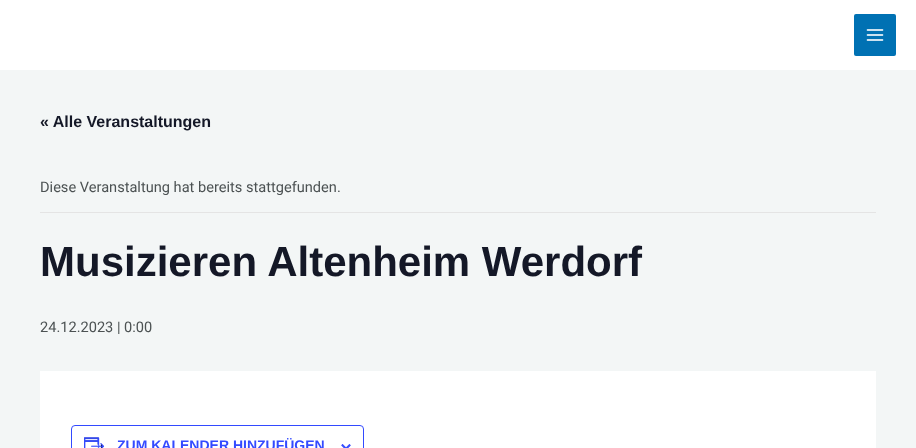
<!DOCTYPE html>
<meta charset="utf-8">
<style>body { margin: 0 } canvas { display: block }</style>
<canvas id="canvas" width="916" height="448"></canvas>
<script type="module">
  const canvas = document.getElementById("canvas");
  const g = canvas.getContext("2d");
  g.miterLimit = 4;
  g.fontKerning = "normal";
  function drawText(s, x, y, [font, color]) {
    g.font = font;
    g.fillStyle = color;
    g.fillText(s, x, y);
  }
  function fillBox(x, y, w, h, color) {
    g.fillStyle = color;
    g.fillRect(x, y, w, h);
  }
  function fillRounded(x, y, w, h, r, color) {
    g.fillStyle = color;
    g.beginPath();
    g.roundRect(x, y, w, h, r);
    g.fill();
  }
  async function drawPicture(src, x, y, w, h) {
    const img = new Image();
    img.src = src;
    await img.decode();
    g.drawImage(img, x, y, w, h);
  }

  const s1 = ["bold 16px Liberation Sans", "#141827"];
  const s2 = ["14.6px Roboto", "#4C5253"];
  const s3 = ["bold 42px Liberation Sans", "#141827"];
  const s4 = ["bold 14px Liberation Sans", "#334AFF"];

  fillBox(0, 0, 916, 448, "#F3F6F6");
  fillBox(0, 0, 916, 70, "#FFFFFF");
  fillRounded(854, 14, 42, 42, 2, "#0071B3");
  await drawPicture("pic1.png", 866, 29, 18, 12);
  drawText("« Alle Veranstaltungen", 40, 127, s1);
  fillBox(40, 212, 836, 1, "#E4E4E4");
  drawText("Diese Veranstaltung hat bereits stattgefunden.", 40, 192, s2);
  drawText("Musizieren Altenheim Werdorf", 40, 276, s3);
  drawText("24.12.2023 | 0:00", 40, 332, s2);
  fillBox(40, 371, 836, 77, "#FFFFFF");
  g.beginPath();
  g.roundRect(71.5, 425.5, 292, 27, 3.5);
  g.strokeStyle = "#334AFF";
  g.stroke();
  await drawPicture("pic2.png", 84, 437, 21, 11);
  drawText("ZUM KALENDER HINZUFÜGEN", 117, 450, s4);
  await drawPicture("pic3.png", 341, 444, 10, 4);
</script>
